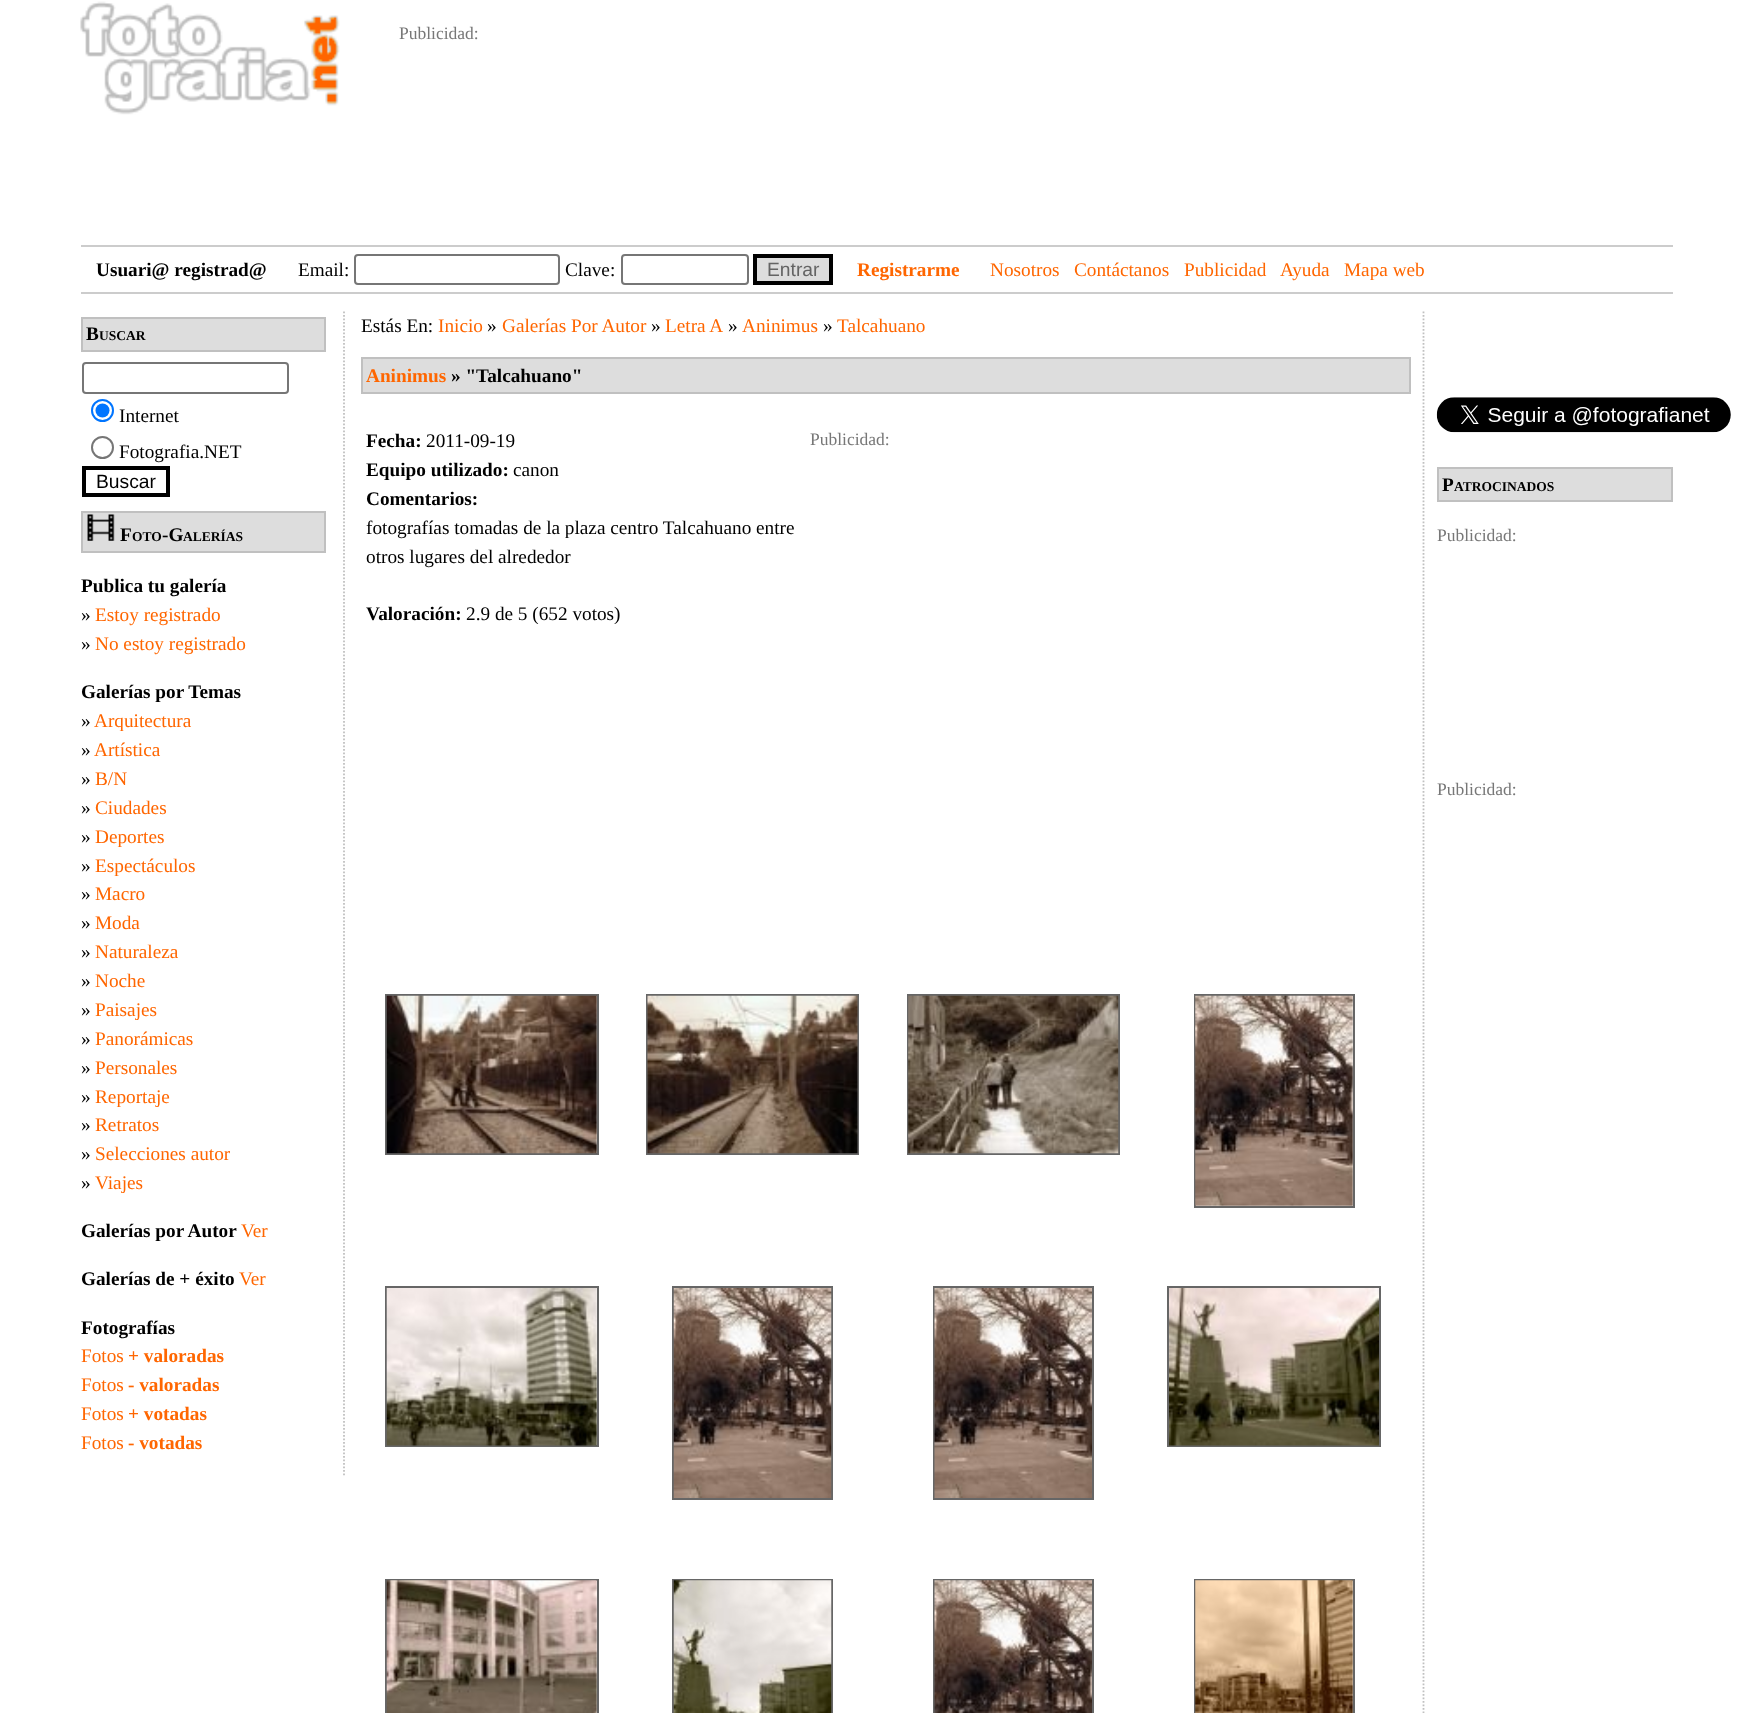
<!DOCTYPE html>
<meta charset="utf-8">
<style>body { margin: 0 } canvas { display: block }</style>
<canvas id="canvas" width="1752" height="1713"></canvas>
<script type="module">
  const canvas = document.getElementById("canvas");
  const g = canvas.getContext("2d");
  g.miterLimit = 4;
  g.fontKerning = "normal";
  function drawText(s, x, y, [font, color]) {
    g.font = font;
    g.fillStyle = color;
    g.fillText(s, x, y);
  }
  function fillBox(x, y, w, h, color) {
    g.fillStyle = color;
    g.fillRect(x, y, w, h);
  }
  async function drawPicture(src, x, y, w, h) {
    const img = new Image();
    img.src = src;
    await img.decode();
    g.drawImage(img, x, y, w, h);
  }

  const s1 = ["17.5px Liberation Serif", "#777777"];
  const s2 = ["bold 19.25px Liberation Serif", "#000000"];
  const s3 = ["19.25px Liberation Serif", "#000000"];
  const s4 = ["19.25px Liberation Sans", "#646464"];
  const s5 = ["bold 19.25px Liberation Serif", "#FF6600"];
  const s6 = ["19.25px Liberation Serif", "#FF6600"];
  const s7 = ["bold 13.5px Liberation Serif", "#000000"];
  const s8 = ["19.25px Liberation Sans", "#000000"];

  fillBox(0, 0, 1752, 1713, "#FFFFFF");
  await drawPicture("pic1.png", 80, 1, 260, 114);
  drawText("Publicidad:", 399, 39, s1);
  fillBox(81, 245, 1592, 2, "#CCCCCC");
  fillBox(81, 292, 1592, 2, "#CCCCCC");
  drawText("Usuari@ registrad@", 96, 276, s2);
  drawText("Email:", 298, 276, s3);
  g.beginPath();
  g.roundRect(355, 255, 204, 29, 3);
  g.strokeStyle = "#767676";
  g.lineWidth = 2;
  g.stroke();
  drawText("Clave:", 565, 276, s3);
  g.beginPath();
  g.roundRect(622, 255, 126, 29, 3);
  g.stroke();
  g.fillStyle = "#DDDDDD";
  g.beginPath();
  g.rect(755, 256, 76, 27);
  g.fill();
  g.strokeStyle = "#000000";
  g.lineWidth = 4;
  g.stroke();
  drawText("Entrar", 767, 276, s4);
  drawText("Registrarme", 857, 276, s5);
  drawText("Nosotros", 990, 276, s6);
  drawText("Contáctanos", 1074, 276, s6);
  drawText("Publicidad", 1184, 276, s6);
  drawText("Ayuda", 1280, 276, s6);
  drawText("Mapa web", 1344, 276, s6);
  g.beginPath();
  g.moveTo(344, 311.5);
  g.lineTo(344, 1477);
  g.strokeStyle = "#C0C0C0";
  g.lineWidth = 1.8;
  g.setLineDash([1.75, 1.75]);
  g.stroke();
  g.fillStyle = "#DDDDDD";
  g.beginPath();
  g.rect(82, 318, 243, 33);
  g.fill();
  g.lineWidth = 2;
  g.setLineDash([]);
  g.stroke();
  drawText("B", 86, 340, s2);
  drawText("USCAR", 99, 340, s7);
  g.beginPath();
  g.roundRect(83, 363, 205, 30, 3);
  g.strokeStyle = "#767676";
  g.stroke();
  g.beginPath();
  g.arc(102.5, 410.5, 10.5, 0, Math.PI * 2);
  g.strokeStyle = "#0075FF";
  g.stroke();
  g.fillStyle = "#0075FF";
  g.beginPath();
  g.arc(102.5, 410.5, 7, 0, Math.PI * 2);
  g.fill();
  drawText("Internet", 119, 422, s3);
  g.beginPath();
  g.arc(102.5, 447.5, 10.5, 0, Math.PI * 2);
  g.strokeStyle = "#767676";
  g.stroke();
  drawText("Fotografia.NET", 119, 458, s3);
  g.strokeStyle = "#000000";
  g.lineWidth = 4;
  g.strokeRect(84, 468, 84, 27);
  drawText("Buscar", 96, 488, s8);
  g.fillStyle = "#DDDDDD";
  g.beginPath();
  g.rect(82, 512, 243, 40);
  g.fill();
  g.strokeStyle = "#C0C0C0";
  g.lineWidth = 2;
  g.stroke();
  await drawPicture("pic2.png", 87, 514, 28, 27);
  drawText("F", 120, 541, s2);
  drawText("OTO", 132, 541, s7);
  drawText("-G", 162, 541, s2);
  drawText("ALERÍAS", 183, 541, s7);
  drawText("Publica tu galería", 81, 592, s2);
  drawText("»", 81, 621, s3);
  drawText("Estoy registrado", 95, 621, s6);
  drawText("»", 81, 650, s3);
  drawText("No estoy registrado", 95, 650, s6);
  drawText("Galerías por Temas", 81, 698, s2);
  drawText("»", 81, 727, s3);
  drawText("Arquitectura", 94, 727, s6);
  drawText("»", 81, 756, s3);
  drawText("Artística", 94, 756, s6);
  drawText("»", 81, 785, s3);
  drawText("B/N", 95, 785, s6);
  drawText("»", 81, 814, s3);
  drawText("Ciudades", 95, 814, s6);
  drawText("»", 81, 843, s3);
  drawText("Deportes", 95, 843, s6);
  drawText("»", 81, 872, s3);
  drawText("Espectáculos", 95, 872, s6);
  drawText("»", 81, 900, s3);
  drawText("Macro", 95, 900, s6);
  drawText("»", 81, 929, s3);
  drawText("Moda", 95, 929, s6);
  drawText("»", 81, 958, s3);
  drawText("Naturaleza", 95, 958, s6);
  drawText("»", 81, 987, s3);
  drawText("Noche", 95, 987, s6);
  drawText("»", 81, 1016, s3);
  drawText("Paisajes", 95, 1016, s6);
  drawText("»", 81, 1045, s3);
  drawText("Panorámicas", 95, 1045, s6);
  drawText("»", 81, 1074, s3);
  drawText("Personales", 95, 1074, s6);
  drawText("»", 81, 1103, s3);
  drawText("Reportaje", 95, 1103, s6);
  drawText("»", 81, 1131, s3);
  drawText("Retratos", 95, 1131, s6);
  drawText("»", 81, 1160, s3);
  drawText("Selecciones autor", 95, 1160, s6);
  drawText("»", 81, 1189, s3);
  drawText("Viajes", 95, 1189, s6);
  drawText("Galerías por Autor", 81, 1237, s2);
  drawText("Ver", 241, 1237, s6);
  drawText("Galerías de + éxito", 81, 1285, s2);
  drawText("Ver", 239, 1285, s6);
  drawText("Fotografías", 81, 1334, s2);
  drawText("Fotos", 81, 1362, s6);
  drawText("+ valoradas", 128, 1362, s5);
  drawText("Fotos", 81, 1391, s6);
  drawText("- valoradas", 128, 1391, s5);
  drawText("Fotos", 81, 1420, s6);
  drawText("+ votadas", 128, 1420, s5);
  drawText("Fotos", 81, 1449, s6);
  drawText("- votadas", 128, 1449, s5);
  g.beginPath();
  g.moveTo(1423.5, 311.5);
  g.lineTo(1423.5, 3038);
  g.lineWidth = 1.8;
  g.setLineDash([1.75, 1.75]);
  g.stroke();
  drawText("Estás En:", 361, 332, s3);
  drawText("Inicio", 438, 332, s6);
  drawText("»", 487, 332, s3);
  drawText("Galerías Por Autor", 502, 332, s6);
  drawText("»", 651, 332, s3);
  drawText("Letra A", 665, 332, s6);
  drawText("»", 728, 332, s3);
  drawText("Aninimus", 742, 332, s6);
  drawText("»", 823, 332, s3);
  drawText("Talcahuano", 837, 332, s6);
  g.fillStyle = "#DDDDDD";
  g.beginPath();
  g.rect(362, 358, 1048, 35);
  g.fill();
  g.lineWidth = 2;
  g.setLineDash([]);
  g.stroke();
  drawText("Aninimus", 366, 382, s5);
  drawText("» \"Talcahuano\"", 451, 382, s2);
  drawText("Fecha:", 366, 447, s2);
  drawText("2011-09-19", 426, 447, s3);
  drawText("Equipo utilizado:", 366, 476, s2);
  drawText("canon", 513, 476, s3);
  drawText("Comentarios:", 366, 505, s2);
  drawText("fotografías tomadas de la plaza centro Talcahuano entre", 366, 534, s3);
  drawText("otros lugares del alrededor", 366, 563, s3);
  drawText("Valoración:", 366, 620, s2);
  drawText("2.9 de 5 (652 votos)", 466, 620, s3);
  drawText("Publicidad:", 810, 445, s1);
  g.strokeStyle = "#666666";
  g.strokeRect(386, 995, 212, 159);
  await drawPicture("pic3.png", 386, 995, 211, 159);
  g.strokeRect(647, 995, 211, 159);
  await drawPicture("pic4.png", 647, 995, 211, 159);
  g.strokeRect(908, 995, 211, 159);
  await drawPicture("pic5.png", 908, 995, 211, 159);
  g.strokeRect(1195, 995, 159, 212);
  await drawPicture("pic6.png", 1195, 995, 158, 211);
  g.strokeRect(386, 1287, 212, 159);
  await drawPicture("pic7.png", 386, 1288, 211, 158);
  g.strokeRect(673, 1287, 159, 212);
  await drawPicture("pic8.png", 673, 1288, 159, 210);
  g.strokeRect(934, 1287, 159, 212);
  await drawPicture("pic9.png", 934, 1288, 158, 210);
  g.strokeRect(1168, 1287, 212, 159);
  await drawPicture("pic10.png", 1169, 1288, 210, 158);
  g.strokeRect(386, 1580, 212, 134);
  await drawPicture("pic11.png", 386, 1580, 211, 133);
  g.strokeRect(673, 1580, 159, 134);
  await drawPicture("pic12.png", 673, 1580, 159, 133);
  g.strokeRect(934, 1580, 159, 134);
  await drawPicture("pic13.png", 934, 1580, 158, 133);
  g.strokeRect(1195, 1580, 159, 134);
  await drawPicture("pic14.png", 1195, 1580, 158, 133);
  await drawPicture("pic15.png", 1436, 397, 295, 36);
  g.fillStyle = "#DDDDDD";
  g.beginPath();
  g.rect(1438, 468, 234, 33);
  g.fill();
  g.strokeStyle = "#C0C0C0";
  g.stroke();
  drawText("P", 1442, 491, s2);
  drawText("ATROCINADOS", 1454, 491, s7);
  drawText("Publicidad:", 1437, 541, s1);
  drawText("Publicidad:", 1437, 795, s1);
</script>
